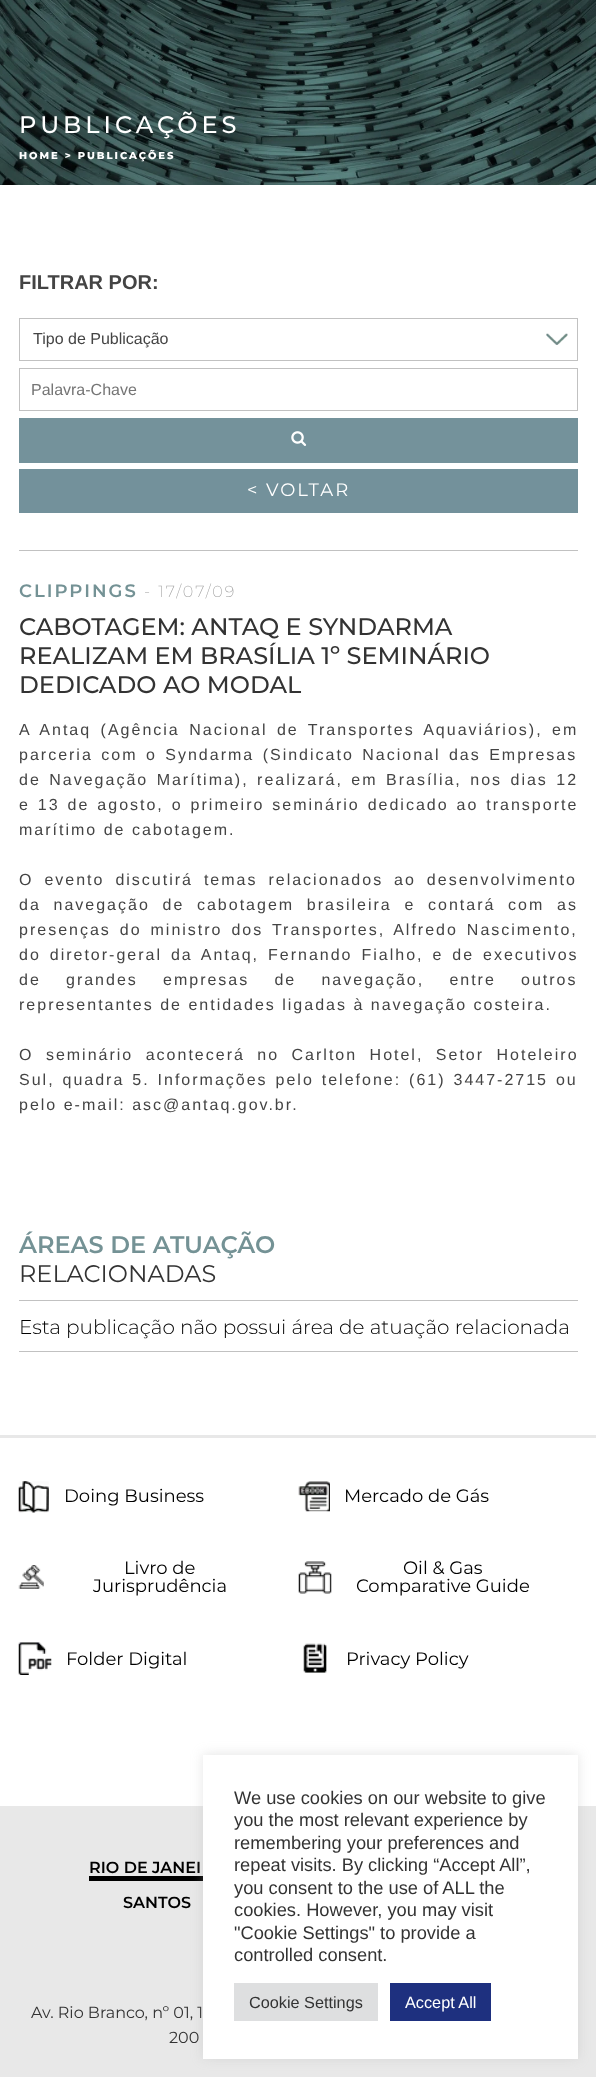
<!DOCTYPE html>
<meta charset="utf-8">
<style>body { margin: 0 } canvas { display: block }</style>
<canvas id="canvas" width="596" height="2077"></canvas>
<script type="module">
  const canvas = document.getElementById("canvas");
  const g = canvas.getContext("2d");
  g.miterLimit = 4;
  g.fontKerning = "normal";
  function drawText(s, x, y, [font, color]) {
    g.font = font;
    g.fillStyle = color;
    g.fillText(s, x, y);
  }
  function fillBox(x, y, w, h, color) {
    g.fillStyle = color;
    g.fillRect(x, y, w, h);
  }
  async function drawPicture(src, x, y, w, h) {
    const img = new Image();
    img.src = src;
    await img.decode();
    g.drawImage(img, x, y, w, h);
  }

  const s1 = ["500 24px Montserrat", "#FFFFFF"];
  const s2 = ["800 10px Montserrat", "#FFFFFF"];
  const s3 = ["bold 20px Arimo", "#444444"];
  const s4 = ["16px Arimo", "#444444"];
  const s5 = ["16px Arimo", "#757575"];
  const s6 = ["18px Montserrat", "#FFFFFF"];
  const s7 = ["600 18px Montserrat", "#749295"];
  const s8 = ["200 16px Montserrat", "#9A9A9A"];
  const s9 = ["500 24px Montserrat", "#333333"];
  const s10 = ["600 24px Montserrat", "#749295"];
  const s11 = ["24px Montserrat", "#333333"];
  const s12 = ["300 20px Montserrat", "#000000"];
  const s13 = ["18px Montserrat", "#000000"];
  const s14 = ["600 16px Montserrat", "#000000"];
  const s15 = ["16px Montserrat", "#333333"];
  const s16 = ["18.3px Liberation Sans", "#333333"];
  const s17 = ["16.25px Liberation Sans", "#333333"];
  const s18 = ["16.25px Liberation Sans", "#FFFFFF"];

  fillBox(0, 0, 596, 2077, "#FFFFFF");
  await drawPicture("pic1.png", 0, 0, 596, 185);
  g.letterSpacing = "4px";
  drawText("PUBLICAÇÕES", 19, 133, s1);
  g.letterSpacing = "2px";
  drawText("HOME > PUBLICAÇÕES", 19, 159, s2);
  fillBox(19, 550, 559, 1, "#C1C1C1");
  g.letterSpacing = "0px";
  drawText("FILTRAR POR:", 19, 289, s3);
  await drawPicture("pic2.png", 546, 333, 22, 12);
  g.strokeStyle = "#C1C1C1";
  g.strokeRect(19.5, 318.5, 558, 42);
  drawText("Tipo de Publicação", 33, 344, s4);
  g.strokeRect(19.5, 368.5, 558, 42);
  drawText("Palavra-Chave", 31, 395, s5);
  fillBox(19, 418, 559, 45, "#74929B");
  await drawPicture("pic3.png", 291, 431, 16, 15);
  fillBox(19, 469, 559, 44, "#73919B");
  g.letterSpacing = "2px";
  drawText("< VOLTAR", 247, 496, s6);
  drawText("CLIPPINGS", 19, 597, s7);
  drawText("- 17/07/09", 144, 597, s8);
  g.letterSpacing = "0px";
  drawText("CABOTAGEM: ANTAQ E SYNDARMA", 19, 635, s9);
  drawText("REALIZAM EM BRASÍLIA 1º SEMINÁRIO", 19, 664, s9);
  drawText("DEDICADO AO MODAL", 19, 693, s9);
  g.letterSpacing = "2px";
  g.wordSpacing = "3px";
  drawText("A Antaq (Agência Nacional de Transportes Aquaviários), em", 19, 735, s4);
  g.wordSpacing = "2px";
  drawText("parceria com o Syndarma (Sindicato Nacional das Empresas", 19, 760, s4);
  drawText("de Navegação Marítima), realizará, em Brasília, nos dias 12", 19, 785, s4);
  g.wordSpacing = "1.5px";
  drawText("e 13 de agosto, o primeiro seminário dedicado ao transporte", 19, 810, s4);
  g.wordSpacing = "0px";
  drawText("marítimo de cabotagem.", 19, 835, s4);
  g.wordSpacing = "4.5px";
  drawText("O evento discutirá temas relacionados ao desenvolvimento", 19, 885, s4);
  g.wordSpacing = "6.25px";
  drawText("da navegação de cabotagem brasileira e contará com as", 19, 910, s4);
  g.wordSpacing = "2.5px";
  drawText("presenças do ministro dos Transportes, Alfredo Nascimento,", 19, 935, s4);
  drawText("do diretor-geral da Antaq, Fernando Fialho, e de executivos", 19, 960, s4);
  g.wordSpacing = "18.75px";
  drawText("de grandes empresas de navegação, entre outros", 19, 985, s4);
  g.wordSpacing = "0px";
  drawText("representantes de entidades ligadas à navegação costeira.", 19, 1010, s4);
  g.wordSpacing = "6px";
  drawText("O seminário acontecerá no Carlton Hotel, Setor Hoteleiro", 19, 1060, s4);
  g.wordSpacing = "1.5px";
  drawText("Sul, quadra 5. Informações pelo telefone: (61) 3447-2715 ou", 19, 1085, s4);
  g.wordSpacing = "0px";
  drawText("pelo e-mail: asc@antaq.gov.br.", 19, 1110, s4);
  g.letterSpacing = "0px";
  drawText("ÁREAS DE ATUAÇÃO", 19, 1253, s10);
  drawText("RELACIONADAS", 19, 1282, s11);
  fillBox(19, 1300, 559, 1, "#C1C1C1");
  fillBox(19, 1351, 559, 1, "#C1C1C1");
  drawText("Esta publicação não possui área de atuação relacionada", 19, 1334, s12);
  fillBox(0, 1435, 596, 3, "#E8E8E8");
  await drawPicture("pic4.png", 18, 1481, 31, 32);
  drawText("Doing Business", 64, 1502, s13);
  await drawPicture("pic5.png", 298, 1481, 32, 31);
  drawText("Mercado de Gás", 344, 1502, s13);
  await drawPicture("pic6.png", 18, 1565, 26, 24);
  drawText("Livro de", 124, 1574, s13);
  drawText("Jurisprudência", 93, 1592, s13);
  await drawPicture("pic7.png", 298, 1561, 34, 33);
  drawText("Oil & Gas", 403, 1574, s13);
  drawText("Comparative Guide", 356, 1592, s13);
  await drawPicture("pic8.png", 18, 1642, 34, 33);
  drawText("Folder Digital", 66, 1665, s13);
  await drawPicture("pic9.png", 303, 1643, 24, 30);
  drawText("Privacy Policy", 346, 1665, s13);
  fillBox(0, 1806, 596, 271, "#E8E8E8");
  drawText("RIO DE JANEI", 89, 1873, s14);
  fillBox(89, 1876, 114, 5, "#000000");
  drawText("SANTOS", 123, 1908, s14);
  drawText("Av. Rio Branco, nº 01, 1", 31, 2018, s15);
  drawText("200", 169, 2043, s15);
  g.fillStyle = "rgba(172, 171, 171, 0.3)";
  g.filter = "blur(6px)";
  g.beginPath();
  g.rect(203, 1754, 375, 304);
  g.fill();
  g.filter = "none";
  fillBox(203, 1755, 375, 304, "#FFFFFF");
  drawText("We use cookies on our website to give", 234, 1804, s16);
  drawText("you the most relevant experience by", 234, 1826, s16);
  drawText("remembering your preferences and", 234, 1849, s16);
  drawText("repeat visits. By clicking “Accept All”,", 234, 1871, s16);
  drawText("you consent to the use of ALL the", 234, 1894, s16);
  drawText("cookies. However, you may visit", 234, 1916, s16);
  drawText("\"Cookie Settings\" to provide a", 234, 1939, s16);
  drawText("controlled consent.", 234, 1961, s16);
  fillBox(234, 1983, 144, 38, "#DEDFE0");
  drawText("Cookie Settings", 249, 2008, s17);
  fillBox(390, 1983, 101, 38, "#1E307F");
  drawText("Accept All", 405, 2008, s18);
</script>
